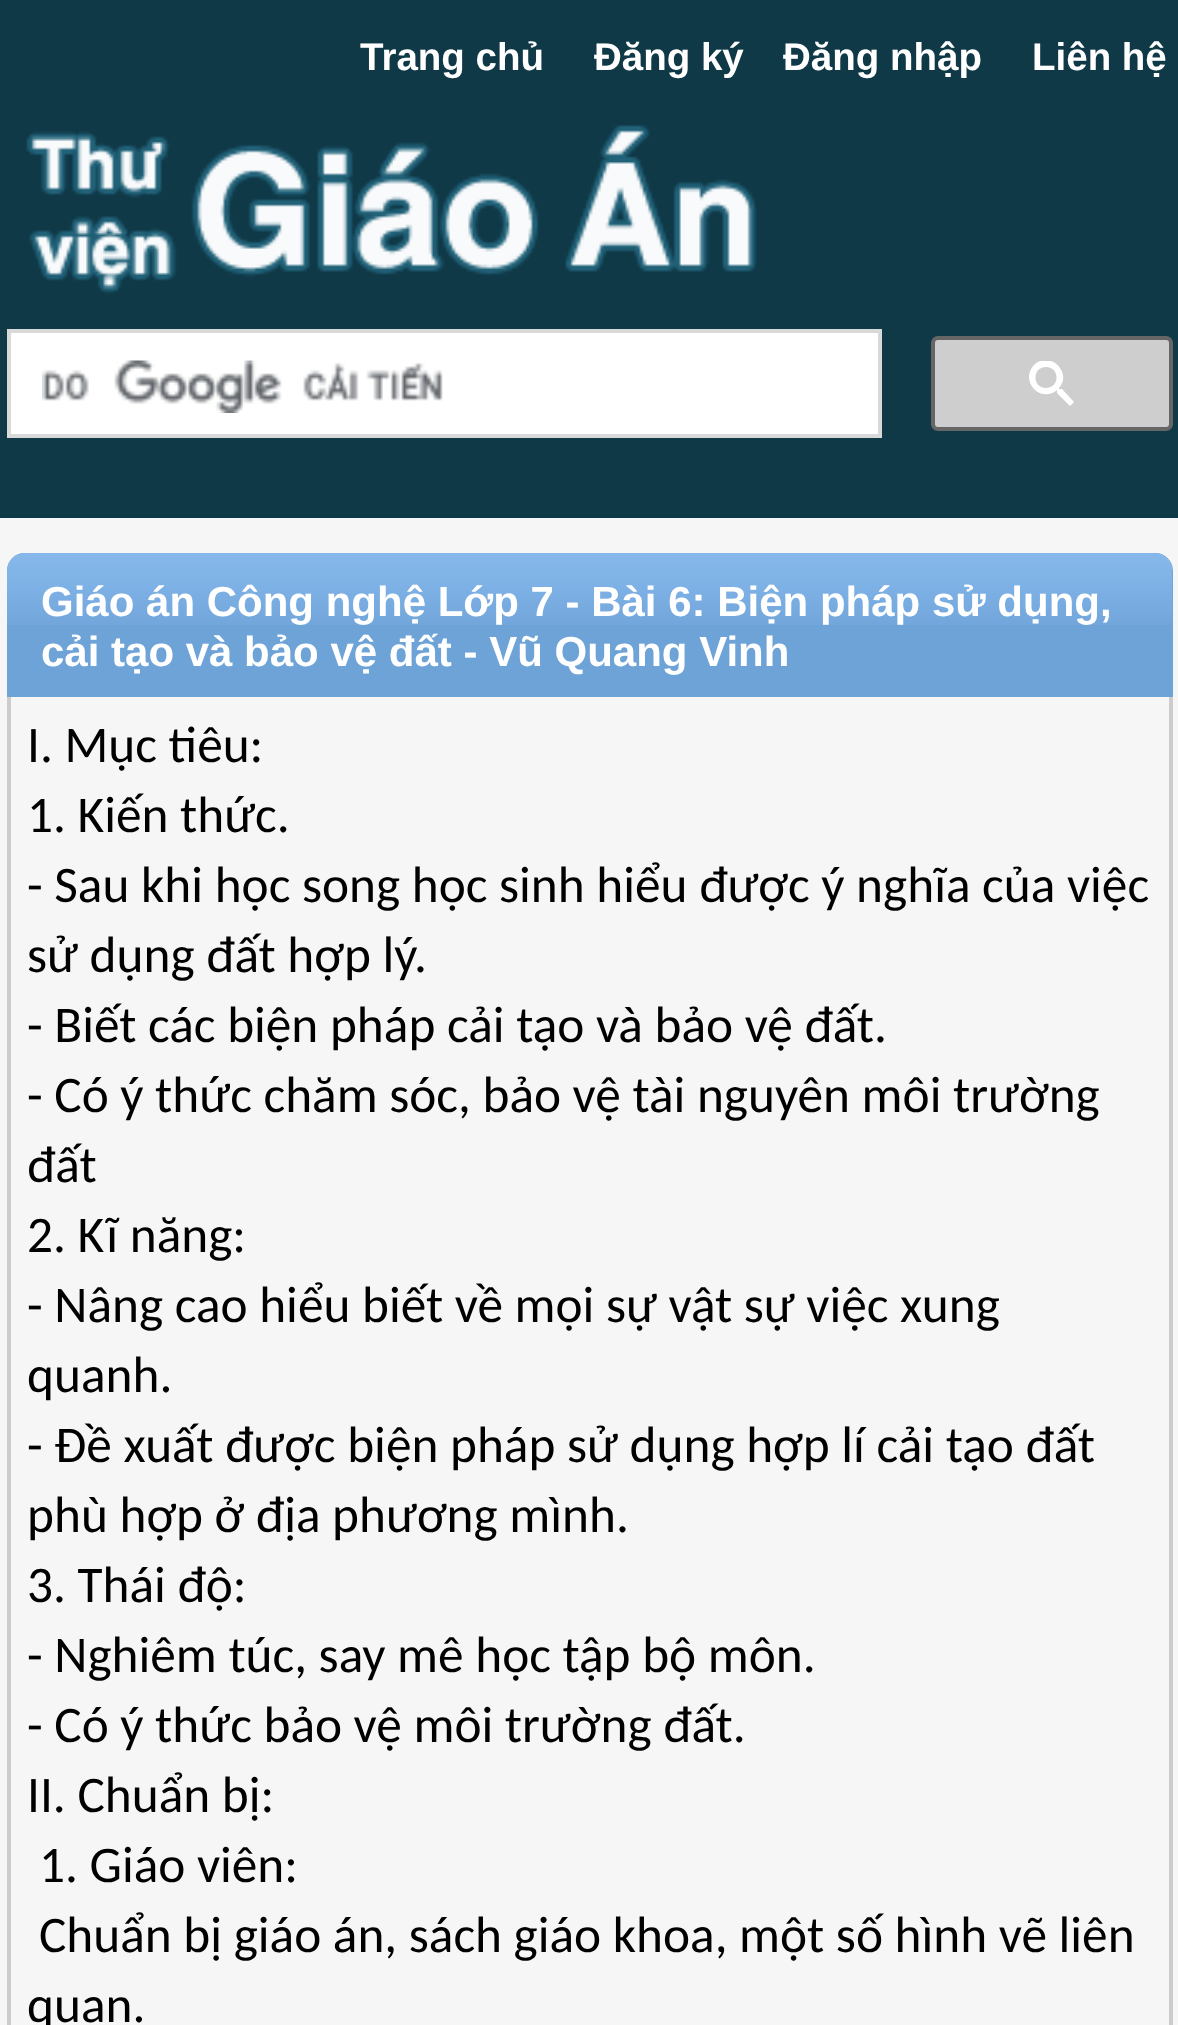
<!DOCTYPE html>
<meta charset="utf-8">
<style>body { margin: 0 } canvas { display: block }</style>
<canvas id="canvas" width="1178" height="2025"></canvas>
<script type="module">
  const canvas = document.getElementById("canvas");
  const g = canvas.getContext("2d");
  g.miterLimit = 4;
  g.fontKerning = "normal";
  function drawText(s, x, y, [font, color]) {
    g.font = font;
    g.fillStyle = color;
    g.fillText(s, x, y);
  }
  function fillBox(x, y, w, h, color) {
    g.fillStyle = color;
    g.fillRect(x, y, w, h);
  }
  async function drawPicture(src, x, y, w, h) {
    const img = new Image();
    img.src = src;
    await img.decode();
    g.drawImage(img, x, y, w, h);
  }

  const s1 = ["bold 38.5px Liberation Sans", "#FFFFFF"];
  const s2 = ["bold 42px Liberation Sans", "#FFFFFF"];
  const s3 = ["51.3px Carlito", "#000000"];

  fillBox(0, 0, 1178, 2025, "#F6F6F6");
  fillBox(0, 0, 1178, 518, "#103948");
  drawText("Trang chủ", 360, 70, s1);
  drawText("Đăng ký", 594, 70, s1);
  drawText("Đăng nhập", 783, 70, s1);
  drawText("Liên hệ", 1032, 70, s1);
  await drawPicture("pic1.png", 26, 125, 731, 169);
  g.beginPath();
  g.rect(9, 331, 871, 105);
  g.fill();
  g.strokeStyle = "#D9D9D9";
  g.lineWidth = 4;
  g.stroke();
  await drawPicture("pic2.png", 42, 360, 401, 53);
  g.fillStyle = "#CECECE";
  g.beginPath();
  g.roundRect(933, 338, 238, 91, 5);
  g.fill();
  g.strokeStyle = "#666666";
  g.stroke();
  g.save();
  g.beginPath();
  g.rect(1029, 361, 46, 45);
  g.clip();
  g.fillStyle = "#FFFFFF";
  g.beginPath();
  g.moveTo(1046, 388);
  g.bezierCurveTo(1060, 388, 1060, 367, 1046, 367);
  g.bezierCurveTo(1032, 367, 1032, 388, 1046, 388);
  g.closePath();
  g.moveTo(1062, 389);
  g.lineTo(1074, 402);
  g.lineTo(1070, 406);
  g.lineTo(1057, 393);
  g.lineTo(1057, 390);
  g.bezierCurveTo(1041, 404, 1019, 381, 1034, 365);
  g.bezierCurveTo(1049, 350, 1073, 372, 1059, 388);
  g.lineTo(1059, 389);
  g.closePath();
  g.fill();
  g.restore();
  g.fillStyle = "#6EA3D8";
  g.beginPath();
  g.roundRect(7, 553, 1166, 144, [18, 18, 0, 0]);
  g.fill();
  await drawPicture("pic3.png", 7, 553, 1165, 72);
  drawText("Giáo án Công nghệ Lớp 7 - Bài 6: Biện pháp sử dụng,", 41, 616, s2);
  drawText("cải tạo và bảo vệ đất - Vũ Quang Vinh", 41, 666, s2);
  fillBox(1169, 697, 4, 1328, "#CCCCCC");
  fillBox(7, 697, 4, 1328, "#CCCCCC");
  drawText("I. Mục tiêu:", 27, 762, s3);
  drawText("1. Kiến thức.", 27, 832, s3);
  drawText("- Sau khi học song học sinh hiểu được ý nghĩa của việc", 27, 902, s3);
  drawText("sử dụng đất hợp lý.", 27, 972, s3);
  drawText("- Biết các biện pháp cải tạo và bảo vệ đất.", 27, 1042, s3);
  drawText("- Có ý thức chăm sóc, bảo vệ tài nguyên môi trường", 27, 1112, s3);
  drawText("đất", 27, 1182, s3);
  drawText("2. Kĩ năng:", 27, 1252, s3);
  drawText("- Nâng cao hiểu biết về mọi sự vật sự việc xung", 27, 1322, s3);
  drawText("quanh.", 27, 1392, s3);
  drawText("- Đề xuất được biện pháp sử dụng hợp lí cải tạo đất", 27, 1462, s3);
  drawText("phù hợp ở địa phương mình.", 27, 1532, s3);
  drawText("3. Thái độ:", 27, 1602, s3);
  drawText("- Nghiêm túc, say mê học tập bộ môn.", 27, 1672, s3);
  drawText("- Có ý thức bảo vệ môi trường đất.", 27, 1742, s3);
  drawText("II. Chuẩn bị:", 27, 1812, s3);
  drawText("1. Giáo viên:", 39, 1882, s3);
  drawText("Chuẩn bị giáo án, sách giáo khoa, một số hình vẽ liên", 39, 1952, s3);
  drawText("quan.", 27, 2022, s3);
</script>
